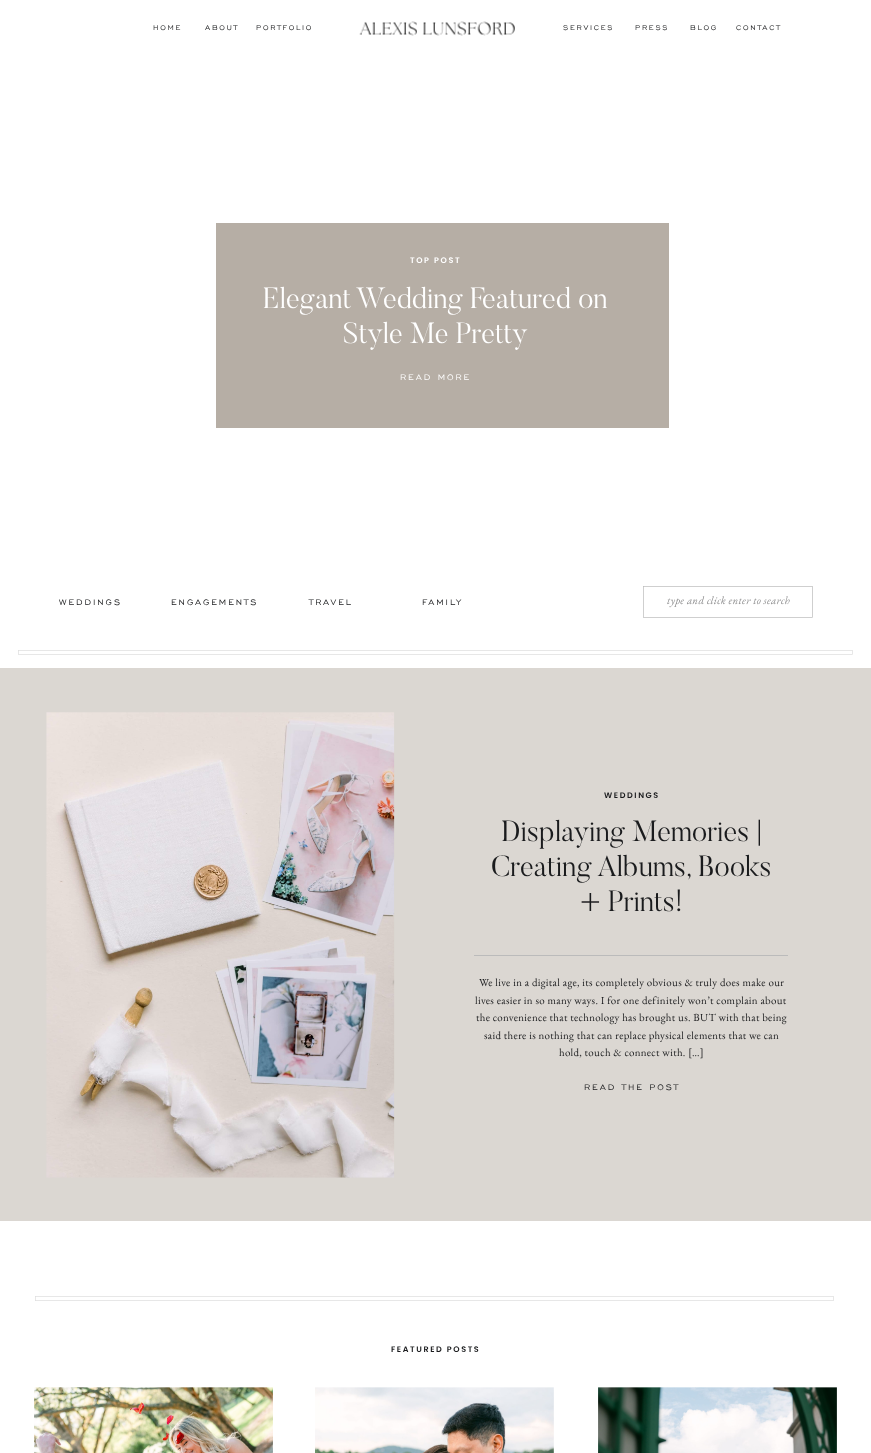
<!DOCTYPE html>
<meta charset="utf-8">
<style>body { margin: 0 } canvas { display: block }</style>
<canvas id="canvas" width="871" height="1453"></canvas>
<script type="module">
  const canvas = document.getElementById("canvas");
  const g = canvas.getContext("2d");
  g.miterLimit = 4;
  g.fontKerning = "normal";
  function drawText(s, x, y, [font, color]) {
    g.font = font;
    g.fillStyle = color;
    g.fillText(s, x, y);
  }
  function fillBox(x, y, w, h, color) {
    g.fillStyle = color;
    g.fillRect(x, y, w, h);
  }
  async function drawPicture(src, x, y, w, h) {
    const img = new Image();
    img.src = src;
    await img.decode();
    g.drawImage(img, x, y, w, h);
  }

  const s1 = ["8.75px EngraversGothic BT", "#1A1B1D"];
  const s2 = ["600 8px Poppins", "#FFFFFF"];
  const s3 = ["300 29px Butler", "#FFFFFF"];
  const s4 = ["10.25px EngraversGothic BT", "#FFFFFF"];
  const s5 = ["10.25px EngraversGothic BT", "#1A1B1D"];
  const s6 = ["italic 10.9px EB Garamond", "#8D8D8E"];
  const s7 = ["600 8px Poppins", "#1A1B1D"];
  const s8 = ["300 29px Butler", "#1A1B1D"];
  const s9 = ["10.9px EB Garamond", "#1A1B1D"];

  fillBox(0, 0, 871, 1453, "#FFFFFF");
  g.letterSpacing = "1.75px";
  drawText("HOME", 153, 30, s1);
  drawText("ABOUT", 205, 30, s1);
  drawText("PORTFOLIO", 256, 30, s1);
  await drawPicture("pic1.png", 359, 21, 156, 15);
  drawText("SERVICES", 563, 30, s1);
  drawText("PRESS", 635, 30, s1);
  drawText("BLOG", 690, 30, s1);
  drawText("CONTACT", 736, 30, s1);
  fillBox(216, 223, 453, 205, "#B6AEA5");
  g.letterSpacing = "1.6px";
  drawText("TOP POST", 410, 263, s2);
  g.letterSpacing = "0px";
  drawText("Elegant Wedding Featured on", 263, 308, s3);
  drawText("Style Me Pretty", 343, 343, s3);
  g.letterSpacing = "2px";
  drawText("READ MORE", 400, 380, s4);
  g.strokeStyle = "#BBBBBB";
  g.lineWidth = 0.7;
  g.strokeRect(643.35, 586.35, 169.3, 31.3);
  drawText("WEDDINGS", 59, 605, s5);
  drawText("ENGAGEMENTS", 171, 605, s5);
  drawText("TRAVEL", 309, 605, s5);
  drawText("FAMILY", 422, 605, s5);
  g.letterSpacing = "0.33px";
  drawText("type and click enter to search", 667, 604, s6);
  g.strokeStyle = "#DDDDDD";
  g.strokeRect(18.35, 650.35, 834.3, 4.3);
  fillBox(0, 668, 871, 553, "#DBD7D2");
  await drawPicture("pic2.png", 46, 712, 349, 466);
  g.letterSpacing = "1.6px";
  drawText("WEDDINGS", 604, 798, s7);
  g.letterSpacing = "0px";
  drawText("Displaying Memories |", 501, 841, s8);
  drawText("Creating Albums, Books", 491, 876, s8);
  drawText("+ Prints!", 580, 911, s8);
  fillBox(474, 955, 314, 1, "#BBBBBB");
  g.letterSpacing = "0.33px";
  drawText("We live in a digital age, its completely obvious & truly does make our", 479, 986, s9);
  drawText("lives easier in so many ways. I for one definitely won’t complain about", 475, 1004, s9);
  drawText("the convenience that technology has brought us. BUT with that being", 476, 1021, s9);
  drawText("said there is nothing that can replace physical elements that we can", 484, 1039, s9);
  drawText("hold, touch & connect with. […]", 559, 1056, s9);
  g.letterSpacing = "2px";
  drawText("READ THE POST", 584, 1090, s5);
  g.strokeRect(35.35, 1296.35, 798.3, 4.3);
  g.letterSpacing = "1.6px";
  drawText("FEATURED POSTS", 391, 1352, s7);
  await drawPicture("pic3.png", 34, 1387, 239, 66);
  await drawPicture("pic4.png", 315, 1387, 239, 66);
  await drawPicture("pic5.png", 598, 1387, 239, 66);
</script>
